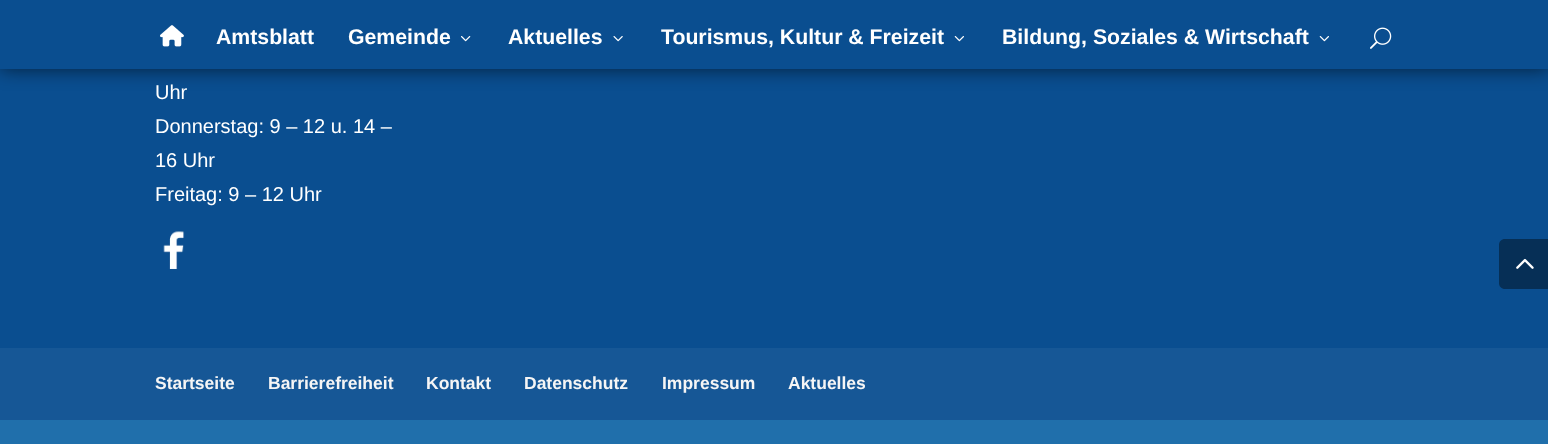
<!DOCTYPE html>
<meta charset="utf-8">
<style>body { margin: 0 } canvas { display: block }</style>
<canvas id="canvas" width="1548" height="444"></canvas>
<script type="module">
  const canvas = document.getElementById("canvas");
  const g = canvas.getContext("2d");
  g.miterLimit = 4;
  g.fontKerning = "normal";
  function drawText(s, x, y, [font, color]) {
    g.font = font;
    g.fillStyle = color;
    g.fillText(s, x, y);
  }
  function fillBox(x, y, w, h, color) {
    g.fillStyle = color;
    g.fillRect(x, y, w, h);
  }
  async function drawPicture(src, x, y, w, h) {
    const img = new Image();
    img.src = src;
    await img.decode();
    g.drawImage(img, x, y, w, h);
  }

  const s1 = ["bold 21.25px Liberation Sans", "#FFFFFF"];
  const s2 = ["20px Liberation Sans", "#FFFFFF"];
  const s3 = ["bold 17.5px Liberation Sans", "#F5F5F5"];

  fillBox(0, 0, 1548, 444, "#0A4E90");
  g.fillStyle = "rgba(0, 0, 0, 0.6)";
  g.filter = "blur(9.5px)";
  g.beginPath();
  g.rect(0, 0, 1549, 69);
  g.fill();
  g.filter = "none";
  fillBox(0, 0, 1548, 69, "#0A4E90");
  await drawPicture("pic1.png", 160, 25, 24, 22);
  drawText("Amtsblatt", 216, 44, s1);
  drawText("Gemeinde", 348, 44, s1);
  await drawPicture("pic2.png", 461, 36, 10, 6);
  drawText("Aktuelles", 508, 44, s1);
  await drawPicture("pic3.png", 613, 36, 10, 6);
  drawText("Tourismus, Kultur & Freizeit", 661, 44, s1);
  await drawPicture("pic4.png", 954, 36, 10, 6);
  drawText("Bildung, Soziales & Wirtschaft", 1002, 44, s1);
  await drawPicture("pic4.png", 1319, 36, 10, 6);
  await drawPicture("pic5.png", 1370, 27, 22, 22);
  drawText("Uhr", 155, 99, s2);
  drawText("Donnerstag: 9 – 12 u. 14 –", 155, 133, s2);
  drawText("16 Uhr", 155, 167, s2);
  drawText("Freitag: 9 – 12 Uhr", 155, 201, s2);
  await drawPicture("pic6.png", 163, 231, 22, 38);
  fillBox(0, 348, 1548, 72, "#165796");
  drawText("Startseite", 155, 389, s3);
  drawText("Barrierefreiheit", 268, 389, s3);
  drawText("Kontakt", 426, 389, s3);
  drawText("Datenschutz", 524, 389, s3);
  drawText("Impressum", 662, 389, s3);
  drawText("Aktuelles", 788, 389, s3);
  fillBox(0, 420, 1548, 24, "#206FAB");
  g.fillStyle = "#062F56";
  g.beginPath();
  g.moveTo(1505, 239);
  g.lineTo(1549, 239);
  g.lineTo(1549, 289);
  g.lineTo(1505, 289);
  g.bezierCurveTo(1501.5, 289, 1499, 286.5, 1499, 283);
  g.lineTo(1499, 245);
  g.bezierCurveTo(1499, 241.5, 1501.5, 239, 1505, 239);
  g.closePath();
  g.fill();
  await drawPicture("pic7.png", 1516, 258, 18, 11);
</script>
